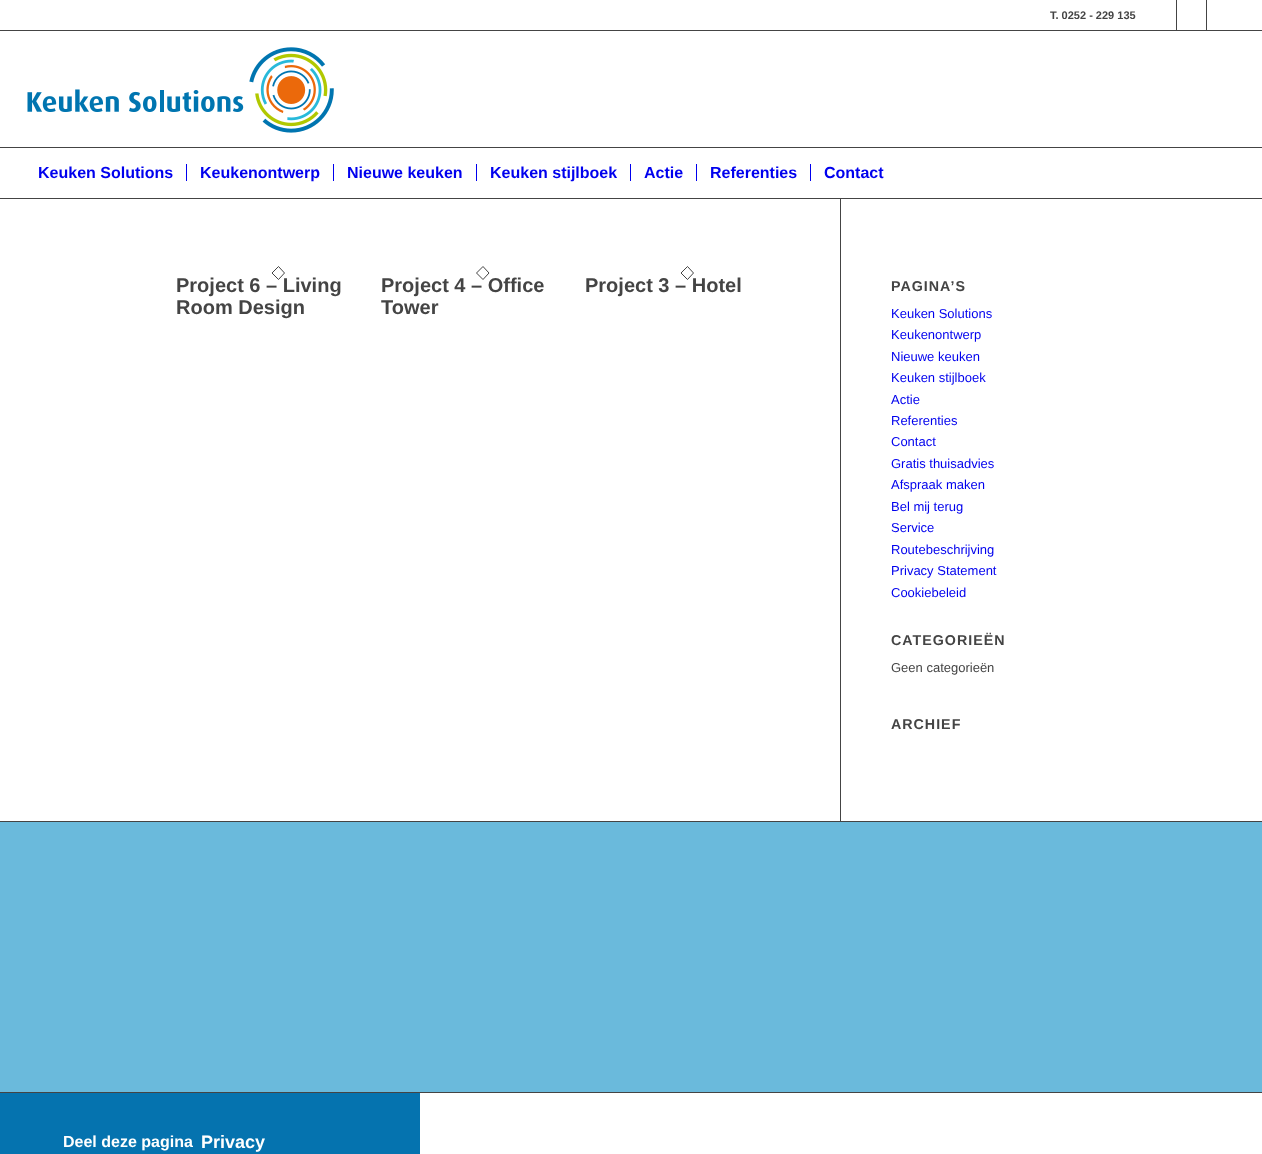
<!DOCTYPE html>
<meta charset="utf-8">
<style>body { margin: 0 } canvas { display: block }</style>
<canvas id="canvas" width="1262" height="1154"></canvas>
<script type="module">
  const canvas = document.getElementById("canvas");
  const g = canvas.getContext("2d");
  g.miterLimit = 4;
  g.fontKerning = "normal";
  function drawText(s, x, y, [font, color]) {
    g.font = font;
    g.fillStyle = color;
    g.fillText(s, x, y);
  }
  function fillBox(x, y, w, h, color) {
    g.fillStyle = color;
    g.fillRect(x, y, w, h);
  }
  async function drawPicture(src, x, y, w, h) {
    const img = new Image();
    img.src = src;
    await img.decode();
    g.drawImage(img, x, y, w, h);
  }

  const s1 = ["bold 11px Liberation Sans", "#444444"];
  const s2 = ["bold 16px Liberation Sans", "#0000EE"];
  const s3 = ["bold 20px Liberation Sans", "#444444"];
  const s4 = ["bold 14.25px Liberation Sans", "#444444"];
  const s5 = ["13px Liberation Sans", "#0000EE"];
  const s6 = ["13px Liberation Sans", "#444444"];
  const s7 = ["bold 16px Liberation Sans", "#FFFFFF"];
  const s8 = ["bold 18px Liberation Sans", "#FFFFFF"];

  fillBox(0, 0, 1262, 1154, "#FFFFFF");
  drawText("T. 0252 - 229 135", 1050, 19, s1);
  fillBox(1176, 0, 1, 30, "#444444");
  fillBox(1206, 0, 1, 30, "#444444");
  fillBox(0, 30, 1262, 1, "#444444");
  await drawPicture("pic1.png", 27, 47, 307, 86);
  fillBox(0, 147, 1262, 1, "#444444");
  drawText("Keuken Solutions", 38, 178, s2);
  drawText("Keukenontwerp", 200, 178, s2);
  fillBox(186, 164, 1, 17, "#0000EE");
  drawText("Nieuwe keuken", 347, 178, s2);
  fillBox(333, 164, 1, 17, "#0000EE");
  drawText("Keuken stijlboek", 490, 178, s2);
  fillBox(476, 164, 1, 17, "#0000EE");
  drawText("Actie", 644, 178, s2);
  fillBox(630, 164, 1, 17, "#0000EE");
  drawText("Referenties", 710, 178, s2);
  fillBox(696, 164, 1, 17, "#0000EE");
  drawText("Contact", 824, 178, s2);
  fillBox(810, 164, 1, 17, "#0000EE");
  fillBox(0, 198, 1262, 1, "#444444");
  g.beginPath();
  g.moveTo(278.5, 266.5);
  g.lineTo(284.5, 273);
  g.lineTo(278.5, 279.5);
  g.lineTo(272, 273);
  g.closePath();
  g.strokeStyle = "#444444";
  g.stroke();
  drawText("Project 6 – Living", 176, 292, s3);
  drawText("Room Design", 176, 314, s3);
  g.beginPath();
  g.moveTo(483, 266.5);
  g.lineTo(489, 273);
  g.lineTo(483, 279.5);
  g.lineTo(476.5, 273);
  g.closePath();
  g.stroke();
  drawText("Project 4 – Office", 381, 292, s3);
  drawText("Tower", 381, 314, s3);
  g.beginPath();
  g.moveTo(687.5, 266.5);
  g.lineTo(693.5, 273);
  g.lineTo(687.5, 279.5);
  g.lineTo(681, 273);
  g.closePath();
  g.stroke();
  drawText("Project 3 – Hotel", 585, 292, s3);
  fillBox(840, 199, 1, 622, "#444444");
  g.letterSpacing = "1px";
  drawText("PAGINA’S", 891, 291, s4);
  g.letterSpacing = "0px";
  drawText("Keuken Solutions", 891, 318, s5);
  drawText("Keukenontwerp", 891, 339, s5);
  drawText("Nieuwe keuken", 891, 361, s5);
  drawText("Keuken stijlboek", 891, 382, s5);
  drawText("Actie", 891, 404, s5);
  drawText("Referenties", 891, 425, s5);
  drawText("Contact", 891, 446, s5);
  drawText("Gratis thuisadvies", 891, 468, s5);
  drawText("Afspraak maken", 891, 489, s5);
  drawText("Bel mij terug", 891, 511, s5);
  drawText("Service", 891, 532, s5);
  drawText("Routebeschrijving", 891, 554, s5);
  drawText("Privacy Statement", 891, 575, s5);
  drawText("Cookiebeleid", 891, 597, s5);
  g.letterSpacing = "1px";
  drawText("CATEGORIEËN", 891, 645, s4);
  g.letterSpacing = "0px";
  drawText("Geen categorieën", 891, 672, s6);
  g.letterSpacing = "1px";
  drawText("ARCHIEF", 891, 729, s4);
  fillBox(0, 822, 1262, 270, "#6ABADC");
  fillBox(0, 821, 1262, 1, "#444444");
  fillBox(0, 1092, 1262, 1, "#444444");
  fillBox(0, 1093, 420, 61, "#0573AF");
  g.letterSpacing = "0px";
  drawText("Deel deze pagina", 63, 1147, s7);
  drawText("Privacy", 201, 1148, s8);
</script>
